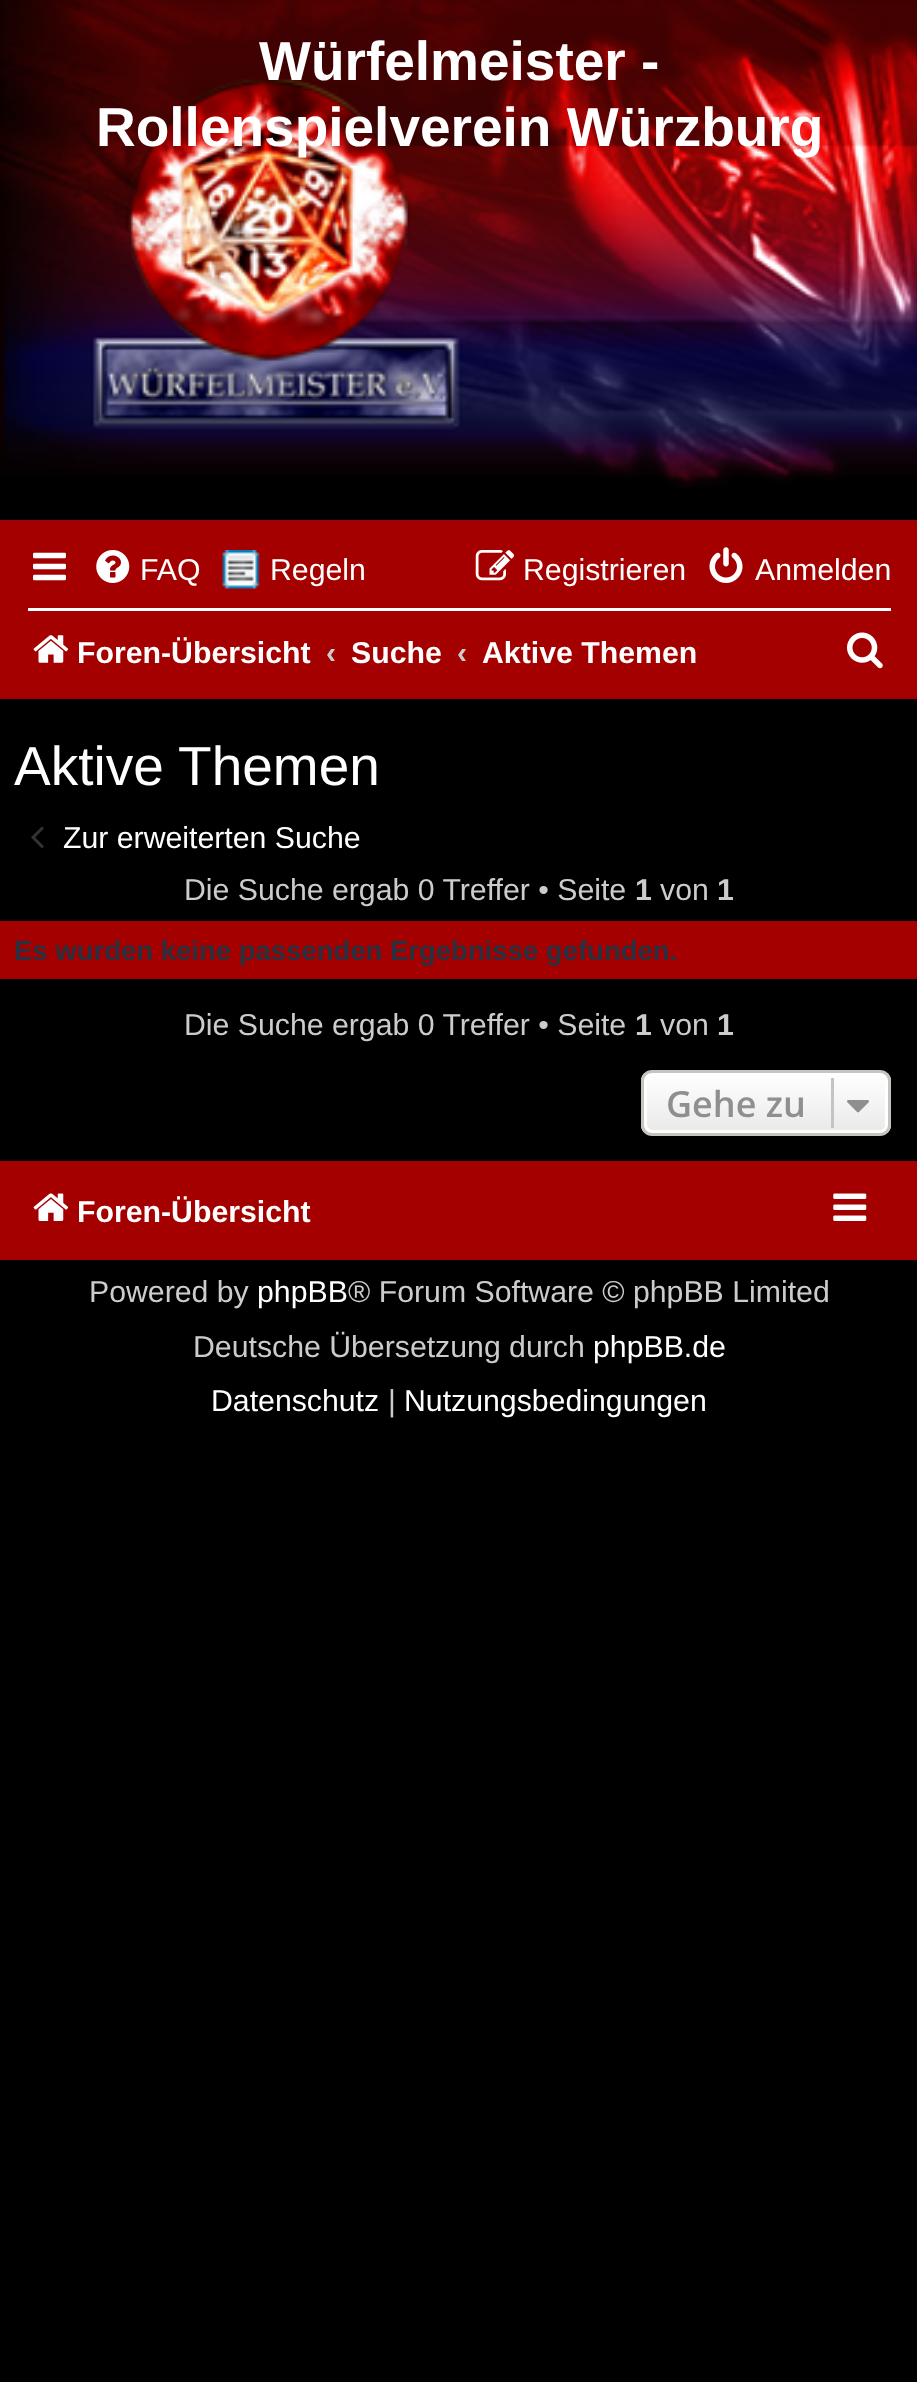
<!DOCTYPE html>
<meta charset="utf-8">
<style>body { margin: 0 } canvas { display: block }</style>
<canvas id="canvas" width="917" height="2382"></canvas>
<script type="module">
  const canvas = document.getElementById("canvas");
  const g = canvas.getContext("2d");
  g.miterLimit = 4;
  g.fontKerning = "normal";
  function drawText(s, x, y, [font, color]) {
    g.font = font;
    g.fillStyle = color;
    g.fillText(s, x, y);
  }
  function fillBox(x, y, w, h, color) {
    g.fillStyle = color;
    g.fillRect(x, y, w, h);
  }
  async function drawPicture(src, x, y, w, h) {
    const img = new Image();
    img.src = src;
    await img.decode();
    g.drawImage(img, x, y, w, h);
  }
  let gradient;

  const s1 = ["bold 55px Liberation Sans", "#FFFFFF"];
  const s2 = ["30.25px Liberation Sans", "#FFFFFF"];
  const s3 = ["bold 30.25px Liberation Sans", "#FFFFFF"];
  const s4 = ["bold 30.25px Liberation Sans", "#CCCCCC"];
  const s5 = ["55px Liberation Sans", "#FFFFFF"];
  const s6 = ["30.25px Liberation Sans", "#CCCCCC"];
  const s7 = ["bold 27.5px Liberation Sans", "#28313F"];
  const s8 = ["600 36px Open Sans", "#8F8F8F"];

  fillBox(0, 0, 917, 2382, "#000000");
  await drawPicture("pic1.png", 0, 0, 917, 489);
  drawText("Würfelmeister -", 259, 80, s1);
  drawText("Rollenspielverein Würzburg", 96, 146, s1);
  fillBox(0, 520, 917, 179, "#A40000");
  await drawPicture("pic2.png", 33, 552, 33, 29);
  await drawPicture("pic3.png", 96, 550, 34, 33);
  drawText("FAQ", 140, 580, s2);
  await drawPicture("pic4.png", 222, 550, 38, 39);
  drawText("Regeln", 270, 580, s2);
  await drawPicture("pic5.png", 475, 550, 40, 31);
  drawText("Registrieren", 523, 580, s2);
  await drawPicture("pic6.png", 709, 547, 34, 36);
  drawText("Anmelden", 755, 580, s2);
  fillBox(28, 608, 863, 3, "#FFFFFF");
  await drawPicture("pic7.png", 33, 635, 36, 28);
  drawText("Foren-Übersicht", 77, 663, s3);
  drawText("‹", 326, 663, s4);
  drawText("Suche", 351, 663, s3);
  drawText("‹", 457, 663, s4);
  drawText("Aktive Themen", 482, 663, s3);
  await drawPicture("pic8.png", 847, 632, 36, 37);
  drawText("Aktive Themen", 14, 785, s5);
  await drawPicture("pic9.png", 31, 826, 13, 22);
  drawText("Zur erweiterten Suche", 63, 848, s2);
  drawText("Die Suche ergab 0 Treffer • Seite", 184, 900, s6);
  drawText("1", 635, 900, s4);
  drawText("von", 660, 900, s6);
  drawText("1", 717, 900, s4);
  fillBox(0, 921, 917, 58, "#A40000");
  drawText("Es wurden keine passenden Ergebnisse gefunden.", 14, 960, s7);
  drawText("Die Suche ergab 0 Treffer • Seite", 184, 1035, s6);
  drawText("1", 635, 1035, s4);
  drawText("von", 660, 1035, s6);
  drawText("1", 717, 1035, s4);
  g.save();
  g.beginPath();
  g.roundRect(641, 1070, 250, 66, 11);
  g.clip();
  gradient = g.createLinearGradient(766, 1073, 766, 1133);
  gradient.addColorStop(0, "#FFFFFF");
  gradient.addColorStop(1, "#E9E9E9");
  g.fillStyle = gradient;
  g.fillRect(641, 1073, 250, 60);
  g.restore();
  g.beginPath();
  g.roundRect(645.5, 1074.5, 241, 57, 6.5);
  g.strokeStyle = "#FFFFFF";
  g.lineWidth = 3;
  g.stroke();
  g.beginPath();
  g.roundRect(642.5, 1071.5, 247, 63, 9.5);
  g.strokeStyle = "#C7C3BF";
  g.stroke();
  drawText("Gehe zu", 666, 1117, s8);
  fillBox(831, 1078, 3, 50, "#C7C3BF");
  await drawPicture("pic10.png", 847, 1100, 22, 13);
  fillBox(0, 1161, 917, 99, "#A40000");
  await drawPicture("pic11.png", 33, 1193, 36, 28);
  drawText("Foren-Übersicht", 77, 1222, s3);
  await drawPicture("pic12.png", 833, 1193, 34, 28);
  drawText("Powered by", 89, 1302, s6);
  drawText("phpBB", 257, 1302, s2);
  drawText("® Forum Software © phpBB Limited", 348, 1302, s6);
  drawText("Deutsche Übersetzung durch", 193, 1357, s6);
  drawText("phpBB.de", 593, 1357, s2);
  drawText("Datenschutz", 211, 1411, s2);
  drawText("|", 388, 1411, s6);
  drawText("Nutzungsbedingungen", 404, 1411, s2);
</script>
